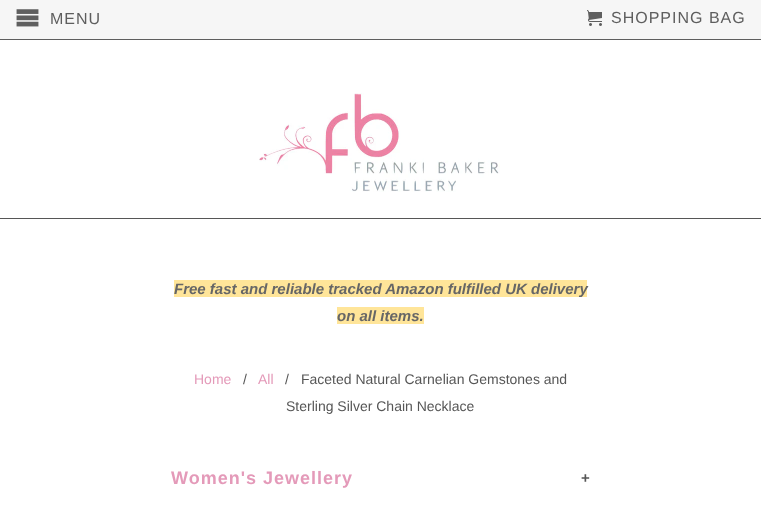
<!DOCTYPE html>
<meta charset="utf-8">
<style>body { margin: 0 } canvas { display: block }</style>
<canvas id="canvas" width="761" height="512"></canvas>
<script type="module">
  const canvas = document.getElementById("canvas");
  const g = canvas.getContext("2d");
  g.miterLimit = 4;
  g.fontKerning = "normal";
  function drawText(s, x, y, [font, color]) {
    g.font = font;
    g.fillStyle = color;
    g.fillText(s, x, y);
  }
  function fillBox(x, y, w, h, color) {
    g.fillStyle = color;
    g.fillRect(x, y, w, h);
  }
  async function drawPicture(src, x, y, w, h) {
    const img = new Image();
    img.src = src;
    await img.decode();
    g.drawImage(img, x, y, w, h);
  }

  const s1 = ["16px Liberation Sans", "#5E5E5E"];
  const s2 = ["italic bold 15px Liberation Sans", "#666666"];
  const s3 = ["14px Liberation Sans", "#E49AB9"];
  const s4 = ["14px Liberation Sans", "#565656"];
  const s5 = ["bold 18px Liberation Sans", "#E49AB9"];
  const s6 = ["bold 15px Liberation Sans", "#565656"];

  fillBox(0, 0, 761, 512, "#FFFFFF");
  fillBox(0, 0, 761, 39, "#F6F6F6");
  fillBox(0, 39, 761, 1, "#5E5E5E");
  await drawPicture("pic1.png", 16, 9, 23, 18);
  g.letterSpacing = "1px";
  drawText("MENU", 50, 24, s1);
  await drawPicture("pic2.png", 587, 10, 15, 16);
  drawText("SHOPPING BAG", 611, 23, s1);
  fillBox(0, 218, 761, 1, "#565656");
  await drawPicture("pic3.png", 259, 93, 241, 99);
  fillBox(174, 280, 413, 17, "#FFE599");
  g.letterSpacing = "0px";
  drawText("Free fast and reliable tracked Amazon fulfilled UK delivery", 174, 294, s2);
  fillBox(337, 307, 87, 17, "#FFE599");
  drawText("on all items.", 337, 321, s2);
  drawText("Home", 194, 384, s3);
  drawText("/", 243, 384, s4);
  drawText("All", 258, 384, s3);
  drawText("/", 285, 384, s4);
  drawText("Faceted Natural Carnelian Gemstones and", 301, 384, s4);
  drawText("Sterling Silver Chain Necklace", 286, 411, s4);
  g.letterSpacing = "1px";
  drawText("Women's Jewellery", 171, 484, s5);
  drawText("+", 581, 483, s6);
</script>
